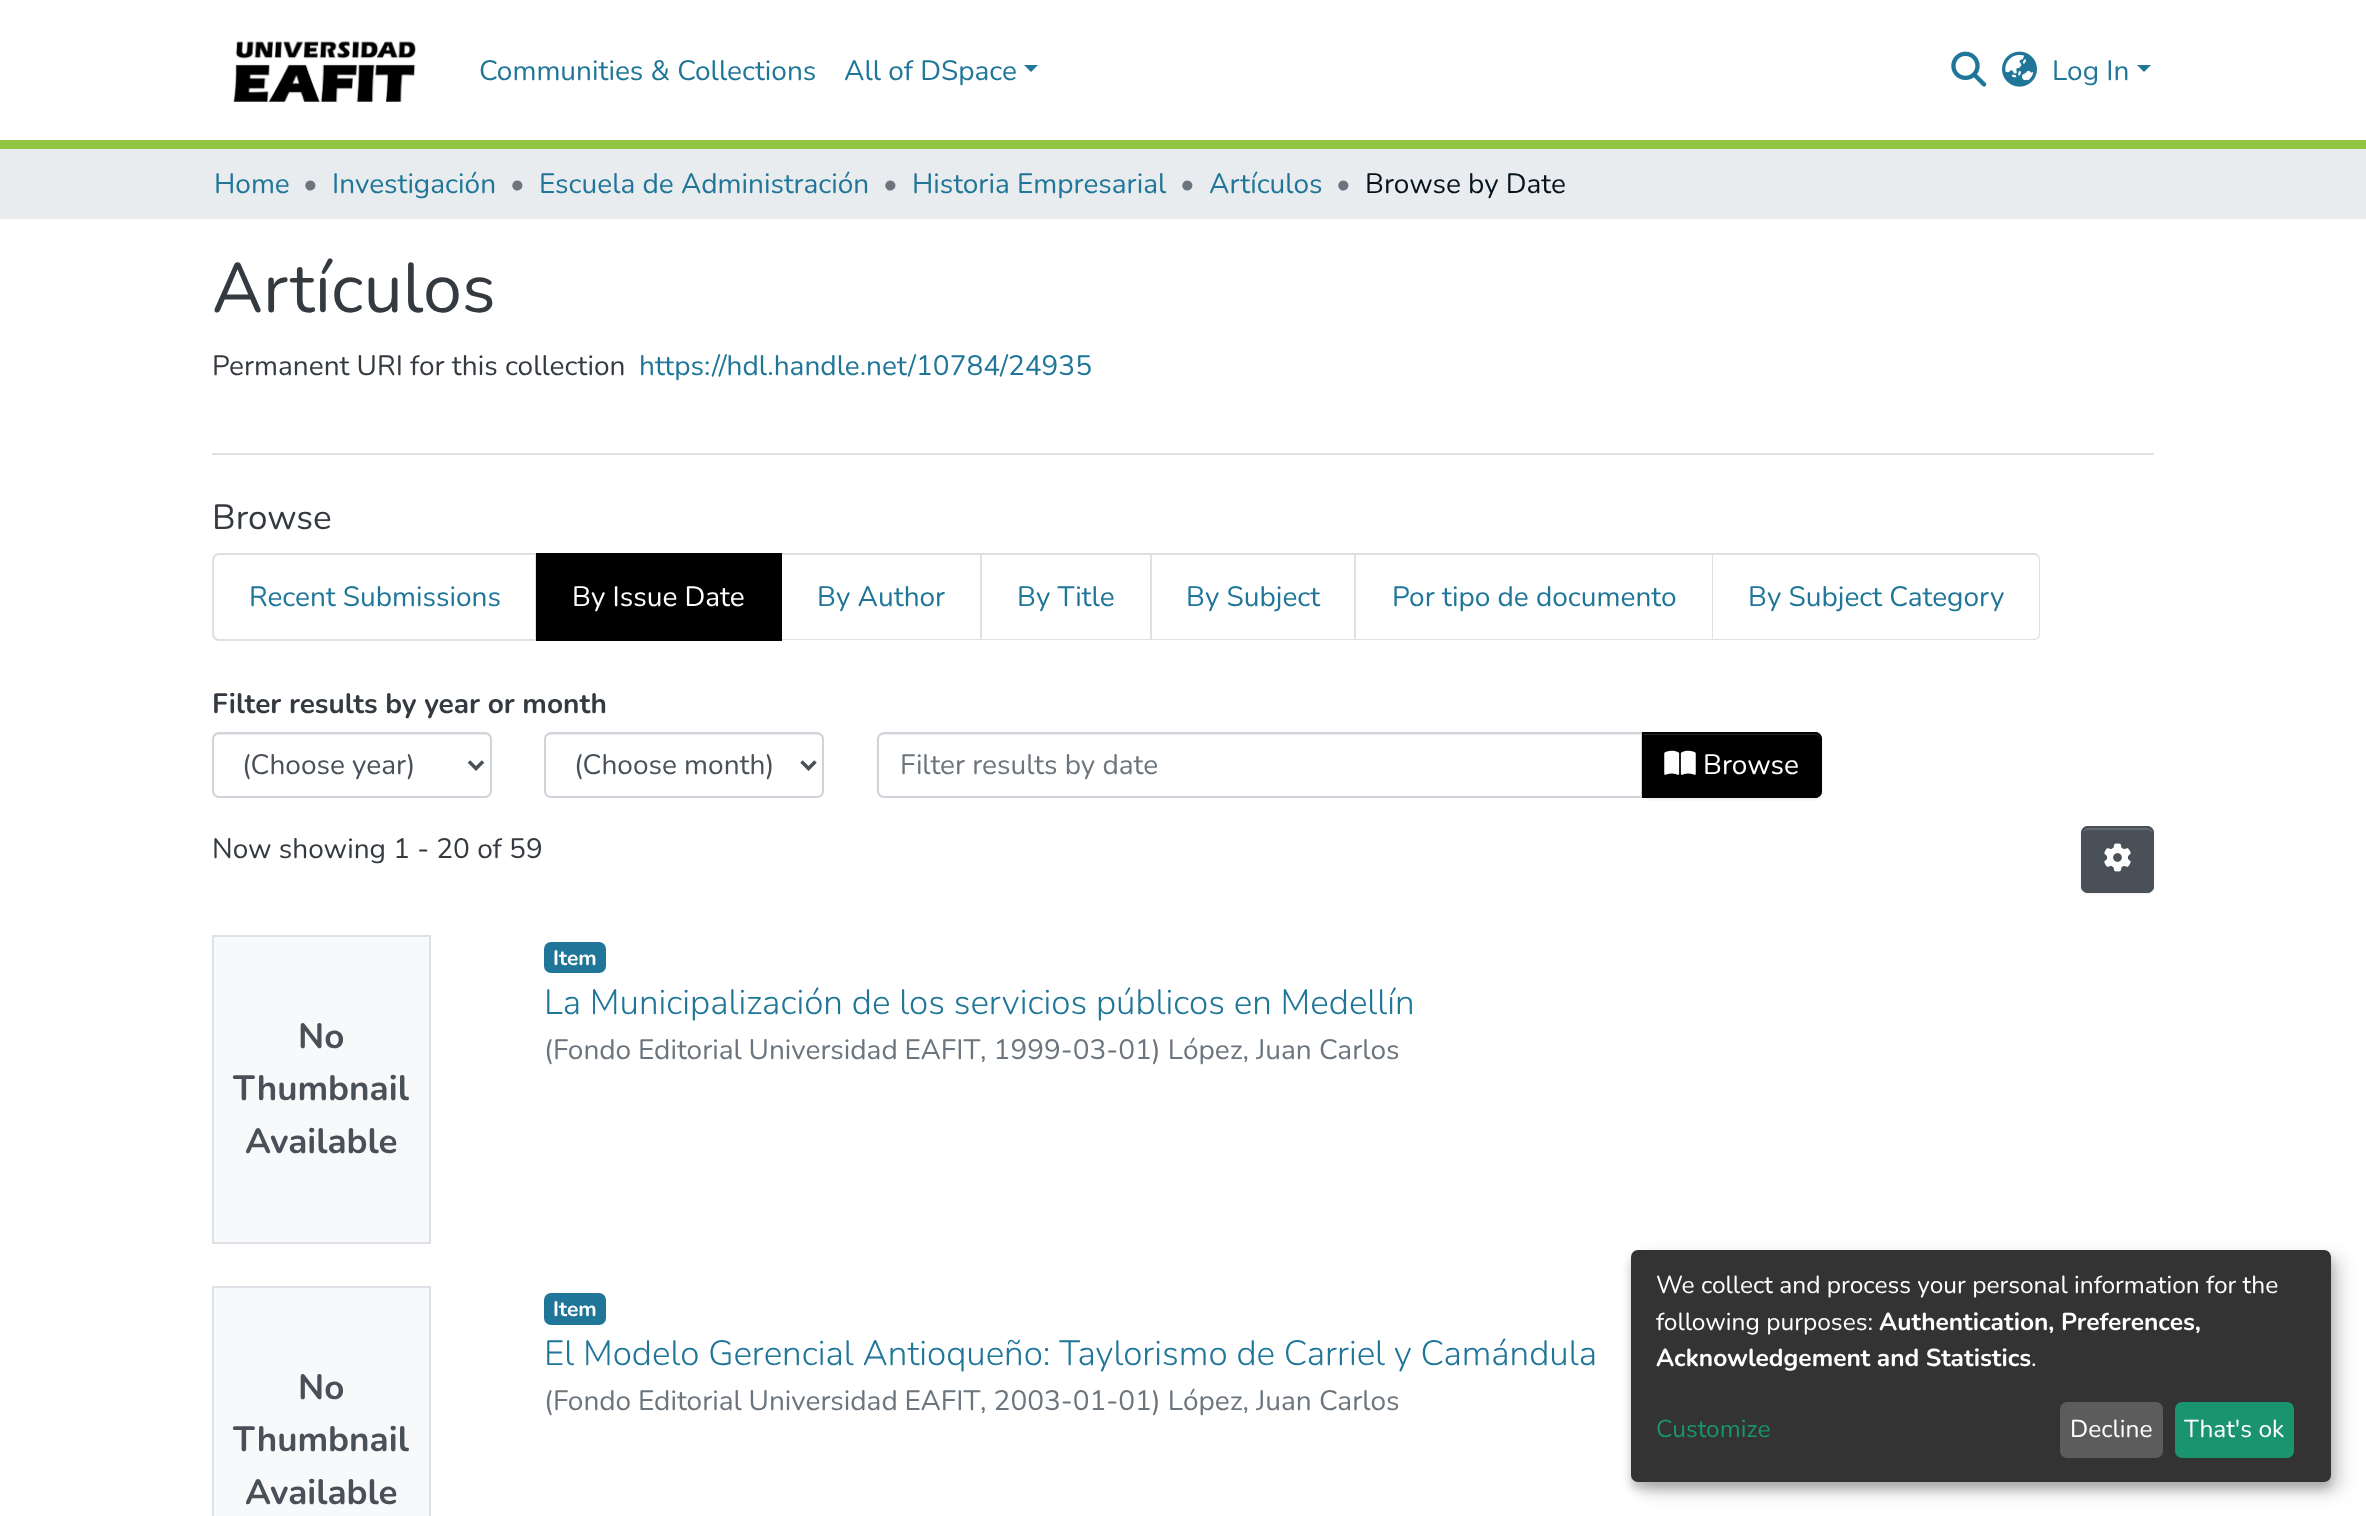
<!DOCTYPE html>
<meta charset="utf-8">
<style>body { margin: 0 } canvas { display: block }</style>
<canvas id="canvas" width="2366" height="1516"></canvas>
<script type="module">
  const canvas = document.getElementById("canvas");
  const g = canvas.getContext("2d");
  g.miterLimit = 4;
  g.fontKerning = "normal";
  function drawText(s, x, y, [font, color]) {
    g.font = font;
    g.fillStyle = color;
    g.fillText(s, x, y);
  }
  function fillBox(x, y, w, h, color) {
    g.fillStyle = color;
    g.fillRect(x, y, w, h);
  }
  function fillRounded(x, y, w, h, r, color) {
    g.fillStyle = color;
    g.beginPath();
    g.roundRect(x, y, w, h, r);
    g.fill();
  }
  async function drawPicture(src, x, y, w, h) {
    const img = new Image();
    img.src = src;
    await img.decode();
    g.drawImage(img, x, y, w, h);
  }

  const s1 = ["28px Nunito", "#207698"];
  const s2 = ["28px Nunito", "#6C757D"];
  const s3 = ["28px Nunito", "#05141A"];
  const s4 = ["70px Nunito", "#343A40"];
  const s5 = ["28px Nunito", "#343A40"];
  const s6 = ["35px Nunito", "#343A40"];
  const s7 = ["28px Nunito", "#FFFFFF"];
  const s8 = ["bold 28px Nunito", "#343A40"];
  const s9 = ["28px Nunito", "#495057"];
  const s10 = ["bold 21px Nunito", "#FFFFFF"];
  const s11 = ["300 35px Nunito", "#207698"];
  const s12 = ["bold 35px Nunito", "#495057"];
  const s13 = ["24.5px Nunito", "#FFFFFF"];
  const s14 = ["bold 24.5px Nunito", "#FFFFFF"];
  const s15 = ["24.5px Nunito", "#1A936F"];

  fillBox(0, 0, 2366, 1516, "#FFFFFF");
  fillBox(0, 140, 2366, 9, "#92C642");
  await drawPicture("pic1.png", 233, 41, 184, 61);
  drawText("Communities & Collections", 479, 80, s1);
  drawText("All of DSpace", 844, 80, s1);
  g.beginPath();
  g.moveTo(1024, 65);
  g.lineTo(1038, 65);
  g.lineTo(1031, 72);
  g.closePath();
  g.fill();
  await drawPicture("pic2.png", 1951, 51, 36, 36);
  await drawPicture("pic3.png", 2002, 51, 35, 36);
  drawText("Log In", 2052, 80, s1);
  g.beginPath();
  g.moveTo(2137, 65);
  g.lineTo(2151, 65);
  g.lineTo(2144, 72);
  g.closePath();
  g.fill();
  fillBox(0, 149, 2366, 70, "#E9ECEF");
  drawText("Home", 214, 193, s1);
  drawText("•", 303, 193, s2);
  drawText("Investigación", 332, 193, s1);
  drawText("•", 510, 193, s2);
  drawText("Escuela de Administración", 539, 193, s1);
  drawText("•", 883, 193, s2);
  drawText("Historia Empresarial", 912, 193, s1);
  drawText("•", 1180, 193, s2);
  drawText("Artículos", 1209, 193, s1);
  drawText("•", 1336, 193, s2);
  drawText("Browse by Date", 1365, 193, s3);
  fillBox(212, 453, 1942, 2, "#DEE2E6");
  drawText("Artículos", 212, 312, s4);
  drawText("Permanent URI for this collection", 212, 375, s5);
  drawText("https://hdl.handle.net/10784/24935", 639, 375, s1);
  drawText("Browse", 212, 529, s6);
  g.beginPath();
  g.roundRect(213, 554, 323, 86, [6, 0, 0, 6]);
  g.strokeStyle = "#DFDFDF";
  g.lineWidth = 2;
  g.stroke();
  drawText("Recent Submissions", 249, 606, s1);
  fillBox(536, 553, 246, 88, "#000000");
  drawText("By Issue Date", 572, 606, s7);
  g.fillStyle = "#DFDFDF";
  g.beginPath();
  g.moveTo(782, 553);
  g.lineTo(982, 553);
  g.lineTo(980, 555);
  g.lineTo(782, 555);
  g.closePath();
  g.fill();
  g.fillStyle = "rgba(0, 0, 0, 0.12)";
  g.beginPath();
  g.moveTo(982, 553);
  g.lineTo(982, 640);
  g.lineTo(980, 639);
  g.lineTo(980, 555);
  g.closePath();
  g.fill();
  g.beginPath();
  g.moveTo(982, 640);
  g.lineTo(782, 640);
  g.lineTo(782, 639);
  g.lineTo(980, 639);
  g.closePath();
  g.fill();
  drawText("By Author", 817, 606, s1);
  g.fillStyle = "#DFDFDF";
  g.beginPath();
  g.moveTo(982, 553);
  g.lineTo(1152, 553);
  g.lineTo(1150, 555);
  g.lineTo(982, 555);
  g.closePath();
  g.fill();
  g.fillStyle = "rgba(0, 0, 0, 0.12)";
  g.beginPath();
  g.moveTo(1152, 553);
  g.lineTo(1152, 640);
  g.lineTo(1150, 639);
  g.lineTo(1150, 555);
  g.closePath();
  g.fill();
  g.beginPath();
  g.moveTo(1152, 640);
  g.lineTo(982, 640);
  g.lineTo(982, 639);
  g.lineTo(1150, 639);
  g.closePath();
  g.fill();
  drawText("By Title", 1017, 606, s1);
  g.fillStyle = "#DFDFDF";
  g.beginPath();
  g.moveTo(1152, 553);
  g.lineTo(1356, 553);
  g.lineTo(1354, 555);
  g.lineTo(1152, 555);
  g.closePath();
  g.fill();
  g.fillStyle = "rgba(0, 0, 0, 0.12)";
  g.beginPath();
  g.moveTo(1356, 553);
  g.lineTo(1356, 640);
  g.lineTo(1354, 639);
  g.lineTo(1354, 555);
  g.closePath();
  g.fill();
  g.beginPath();
  g.moveTo(1356, 640);
  g.lineTo(1152, 640);
  g.lineTo(1152, 639);
  g.lineTo(1354, 639);
  g.closePath();
  g.fill();
  drawText("By Subject", 1186, 606, s1);
  g.fillStyle = "#DFDFDF";
  g.beginPath();
  g.moveTo(1356, 553);
  g.lineTo(1713, 553);
  g.lineTo(1712, 555);
  g.lineTo(1356, 555);
  g.closePath();
  g.fill();
  g.fillStyle = "rgba(0, 0, 0, 0.12)";
  g.beginPath();
  g.moveTo(1713, 553);
  g.lineTo(1713, 640);
  g.lineTo(1712, 639);
  g.lineTo(1712, 555);
  g.closePath();
  g.fill();
  g.beginPath();
  g.moveTo(1713, 640);
  g.lineTo(1356, 640);
  g.lineTo(1356, 639);
  g.lineTo(1712, 639);
  g.closePath();
  g.fill();
  drawText("Por tipo de documento", 1392, 606, s1);
  g.fillStyle = "#DFDFDF";
  g.beginPath();
  g.moveTo(1713, 553);
  g.lineTo(2034, 553);
  g.bezierCurveTo(2037, 553, 2040, 556, 2040, 560);
  g.lineTo(2040, 634);
  g.bezierCurveTo(2040, 637, 2037, 640, 2034, 640);
  g.lineTo(1713, 640);
  g.closePath();
  g.moveTo(1713, 555);
  g.lineTo(2034, 555);
  g.bezierCurveTo(2036, 555, 2039, 557, 2039, 560);
  g.lineTo(2039, 634);
  g.bezierCurveTo(2039, 636, 2036, 639, 2034, 639);
  g.lineTo(1713, 639);
  g.closePath();
  g.fill("evenodd");
  drawText("By Subject Category", 1748, 606, s1);
  drawText("Filter results by year or month", 212, 713, s8);
  g.fillStyle = "#ECECEC";
  g.beginPath();
  g.moveTo(219, 735);
  g.lineTo(485, 735);
  g.bezierCurveTo(488, 735, 490, 737, 490, 740);
  g.lineTo(490, 738);
  g.bezierCurveTo(490, 735, 488, 733, 485, 733);
  g.lineTo(219, 733);
  g.bezierCurveTo(216, 733, 214, 735, 214, 738);
  g.lineTo(214, 740);
  g.bezierCurveTo(214, 737, 216, 735, 219, 735);
  g.closePath();
  g.fill();
  g.beginPath();
  g.roundRect(213, 733, 278, 64, 6);
  g.strokeStyle = "#CED4DA";
  g.stroke();
  g.beginPath();
  g.moveTo(469, 761.5);
  g.lineTo(476, 768.5);
  g.lineTo(483, 761.5);
  g.strokeStyle = "#495057";
  g.lineWidth = 3.5;
  g.stroke();
  drawText("(Choose year)", 242, 774, s9);
  g.fillStyle = "#ECECEC";
  g.beginPath();
  g.moveTo(551, 735);
  g.lineTo(817, 735);
  g.bezierCurveTo(820, 735, 822, 737, 822, 740);
  g.lineTo(822, 794);
  g.bezierCurveTo(823, 793, 823, 792, 823, 791);
  g.lineTo(823, 738);
  g.bezierCurveTo(823, 735, 821, 733, 818, 733);
  g.lineTo(551, 733);
  g.bezierCurveTo(548, 733, 546, 735, 546, 738);
  g.lineTo(546, 740);
  g.bezierCurveTo(546, 737, 548, 735, 551, 735);
  g.closePath();
  g.fill();
  g.beginPath();
  g.roundRect(545, 733, 278, 64, 6);
  g.strokeStyle = "#CED4DA";
  g.lineWidth = 2;
  g.stroke();
  g.beginPath();
  g.moveTo(801.5, 761.5);
  g.lineTo(808.5, 768.5);
  g.lineTo(815.5, 761.5);
  g.strokeStyle = "#495057";
  g.lineWidth = 3.5;
  g.stroke();
  drawText("(Choose month)", 574, 774, s9);
  g.fillStyle = "#ECECEC";
  g.beginPath();
  g.moveTo(884, 735);
  g.lineTo(1642, 735);
  g.lineTo(1642, 733);
  g.lineTo(884, 733);
  g.bezierCurveTo(882, 733, 879, 735, 879, 737);
  g.bezierCurveTo(880, 736, 882, 735, 884, 735);
  g.closePath();
  g.fill();
  g.beginPath();
  g.roundRect(878, 733, 764, 64, [6, 0, 0, 6]);
  g.strokeStyle = "#CED4DA";
  g.lineWidth = 2;
  g.stroke();
  drawText("Filter results by date", 900, 774, s2);
  g.fillStyle = "rgba(0, 0, 0, 0.07)";
  g.filter = "blur(1px)";
  g.beginPath();
  g.roundRect(1642, 733, 180, 67, 7);
  g.fill();
  g.filter = "none";
  g.fillStyle = "#000000";
  g.beginPath();
  g.roundRect(1642, 732, 180, 66, [0, 7, 7, 0]);
  g.fill();
  g.fillStyle = "#262626";
  g.beginPath();
  g.moveTo(1643, 735);
  g.lineTo(1815, 735);
  g.bezierCurveTo(1818, 735, 1820, 737, 1820, 740);
  g.lineTo(1820, 738);
  g.bezierCurveTo(1820, 735, 1818, 733, 1815, 733);
  g.lineTo(1643, 733);
  g.closePath();
  g.fill();
  g.beginPath();
  g.roundRect(1643, 733, 178, 64, [0, 6, 6, 0]);
  g.strokeStyle = "#000000";
  g.stroke();
  await drawPicture("pic4.png", 1664, 750, 32, 25);
  drawText("Browse", 1703, 774, s7);
  drawText("Now showing 1 - 20 of 59", 212, 858, s5);
  g.fillStyle = "rgba(0, 0, 0, 0.07)";
  g.filter = "blur(1px)";
  g.beginPath();
  g.roundRect(2081, 828, 73, 66, 7);
  g.fill();
  g.filter = "none";
  fillRounded(2081, 826, 73, 67, 7, "#495057");
  g.fillStyle = "#646A70";
  g.beginPath();
  g.moveTo(2088, 830);
  g.lineTo(2147, 830);
  g.bezierCurveTo(2150, 830, 2152, 832, 2152, 835);
  g.lineTo(2152, 887);
  g.lineTo(2151, 890);
  g.bezierCurveTo(2152, 889, 2153, 887, 2153, 886);
  g.lineTo(2153, 833);
  g.bezierCurveTo(2153, 830, 2151, 828, 2148, 828);
  g.lineTo(2088, 828);
  g.bezierCurveTo(2086, 828, 2083, 830, 2083, 832);
  g.bezierCurveTo(2084, 831, 2086, 830, 2088, 830);
  g.closePath();
  g.fill();
  g.beginPath();
  g.roundRect(2082, 827, 71, 65, 6);
  g.strokeStyle = "#495057";
  g.stroke();
  await drawPicture("pic5.png", 2104, 843, 27, 29);
  fillRounded(544, 942, 62, 31, 7, "#207698");
  drawText("Item", 553, 965, s10);
  drawText("La Municipalización de los servicios públicos en Medellín", 544, 1014, s11);
  drawText("(", 544, 1059, s2);
  g.wordSpacing = "-0.5px";
  drawText("Fondo Editorial Universidad EAFIT", 553, 1059, s2);
  g.wordSpacing = "0px";
  drawText(", 1999-03-01) López, Juan Carlos", 980, 1059, s2);
  g.fillStyle = "#F8F9FA";
  g.beginPath();
  g.rect(213, 936, 217, 307);
  g.fill();
  g.strokeStyle = "#DEE2E6";
  g.stroke();
  drawText("No", 298, 1048, s12);
  drawText("Thumbnail", 233, 1100, s12);
  drawText("Available", 245, 1153, s12);
  fillRounded(544, 1293, 62, 32, 7, "#207698");
  drawText("Item", 553, 1316, s10);
  drawText("El Modelo Gerencial Antioqueño: Taylorismo de Carriel y Camándula", 544, 1365, s11);
  drawText("(", 544, 1410, s2);
  g.wordSpacing = "-0.5px";
  drawText("Fondo Editorial Universidad EAFIT", 553, 1410, s2);
  g.wordSpacing = "0px";
  drawText(", 2003-01-01) López, Juan Carlos", 980, 1410, s2);
  g.fillStyle = "#F8F9FA";
  g.beginPath();
  g.rect(213, 1287, 217, 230);
  g.fill();
  g.stroke();
  drawText("No", 298, 1399, s12);
  drawText("Thumbnail", 233, 1451, s12);
  drawText("Available", 245, 1504, s12);
  g.fillStyle = "rgba(0, 0, 0, 0.19)";
  g.filter = "blur(9px)";
  g.beginPath();
  g.roundRect(1640, 1258, 700, 233, 7);
  g.fill();
  g.filter = "none";
  g.fillStyle = "rgba(0, 0, 0, 0.2)";
  g.filter = "blur(5px)";
  g.beginPath();
  g.roundRect(1631, 1257, 700, 232, 7);
  g.fill();
  g.filter = "none";
  fillRounded(1631, 1250, 700, 232, 7, "#333333");
  drawText("We collect and process your personal information for the", 1656, 1293, s13);
  drawText("following purposes:", 1656, 1330, s13);
  drawText("Authentication, Preferences,", 1879, 1330, s14);
  drawText("Acknowledgement and Statistics", 1656, 1366, s14);
  drawText(".", 2031, 1366, s13);
  drawText("Customize", 1656, 1437, s15);
  fillRounded(2060, 1402, 103, 56, 7, "#5C5C5C");
  drawText("Decline", 2070, 1437, s13);
  fillRounded(2175, 1402, 119, 56, 7, "#1A936F");
  drawText("That's ok", 2184, 1437, s13);
</script>
